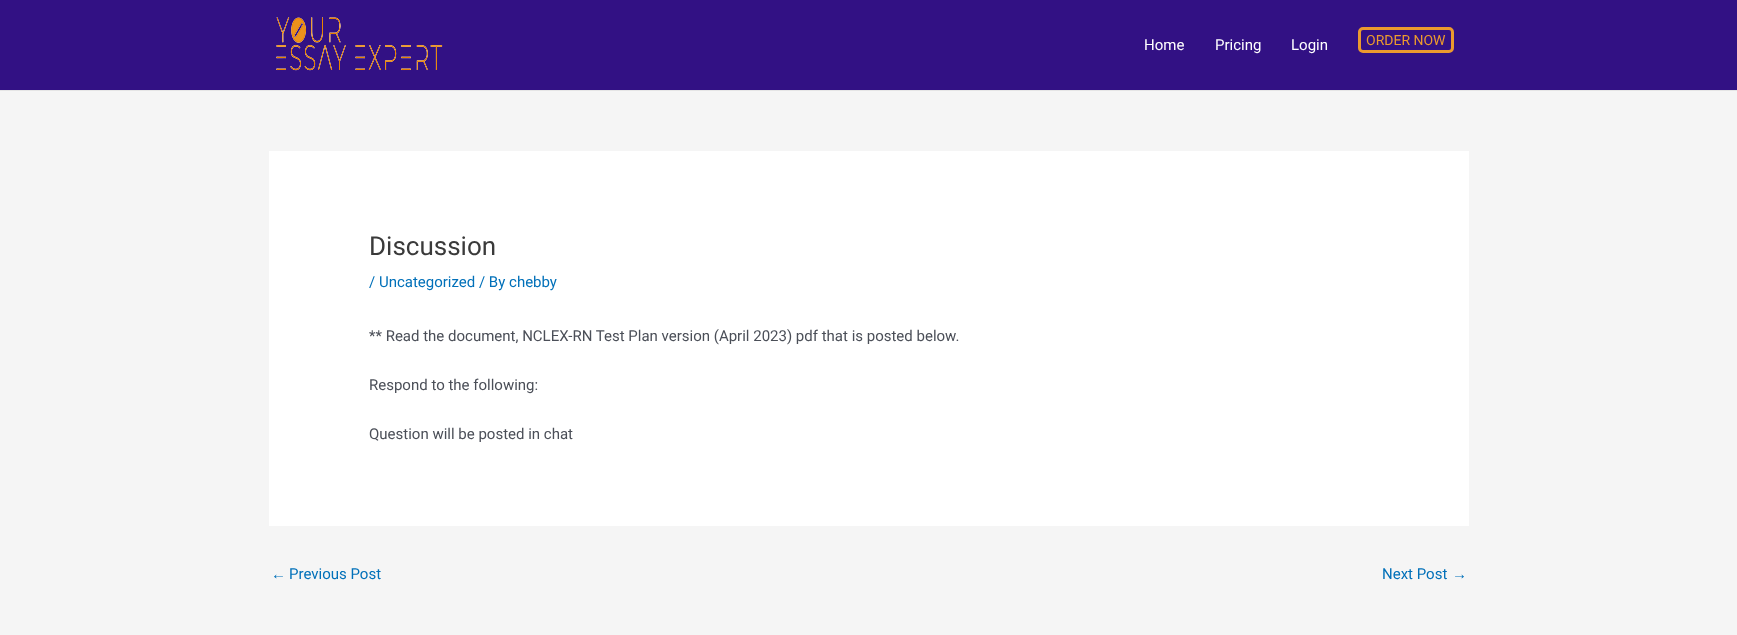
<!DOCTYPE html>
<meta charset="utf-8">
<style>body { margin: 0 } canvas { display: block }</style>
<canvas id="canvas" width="1737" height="635"></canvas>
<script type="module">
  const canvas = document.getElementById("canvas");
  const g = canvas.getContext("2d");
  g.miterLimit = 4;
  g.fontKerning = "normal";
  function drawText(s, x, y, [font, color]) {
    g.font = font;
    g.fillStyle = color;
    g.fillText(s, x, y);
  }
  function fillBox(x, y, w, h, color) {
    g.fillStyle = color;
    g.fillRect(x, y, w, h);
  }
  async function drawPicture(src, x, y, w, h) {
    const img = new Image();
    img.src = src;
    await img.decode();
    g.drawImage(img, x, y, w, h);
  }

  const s1 = ["15px Roboto", "#FFFFFF"];
  const s2 = ["14px Roboto", "#EC9A2E"];
  const s3 = ["26px Roboto", "#3A3A3A"];
  const s4 = ["15px Roboto", "#0170B9"];
  const s5 = ["15px Roboto", "#4B4F58"];
  const s6 = ["15px Liberation Sans", "#0170B9"];

  fillBox(0, 0, 1737, 635, "#F5F5F5");
  fillBox(0, 0, 1737, 90, "#321184");
  fillBox(0, 90, 1737, 1, "#E5E5E5");
  await drawPicture("pic1.png", 276, 17, 167, 54);
  drawText("Home", 1144, 50, s1);
  drawText("Pricing", 1215, 50, s1);
  drawText("Login", 1291, 50, s1);
  g.beginPath();
  g.roundRect(1359.5, 28.5, 93, 23, 3.5);
  g.strokeStyle = "#EC9A2E";
  g.lineWidth = 3;
  g.stroke();
  drawText("ORDER NOW", 1366, 45, s2);
  fillBox(269, 151, 1200, 375, "#FFFFFF");
  drawText("Discussion", 369, 255, s3);
  drawText("/ Uncategorized / By chebby", 369, 287, s4);
  drawText("** Read the document, NCLEX-RN Test Plan version (April 2023) pdf that is posted below.", 369, 341, s5);
  drawText("Respond to the following:", 369, 390, s5);
  drawText("Question will be posted in chat", 369, 439, s5);
  drawText("←", 271, 579, s6);
  drawText("Previous Post", 289, 579, s4);
  drawText("Next Post", 1382, 579, s4);
  drawText("→", 1452, 579, s6);
</script>
